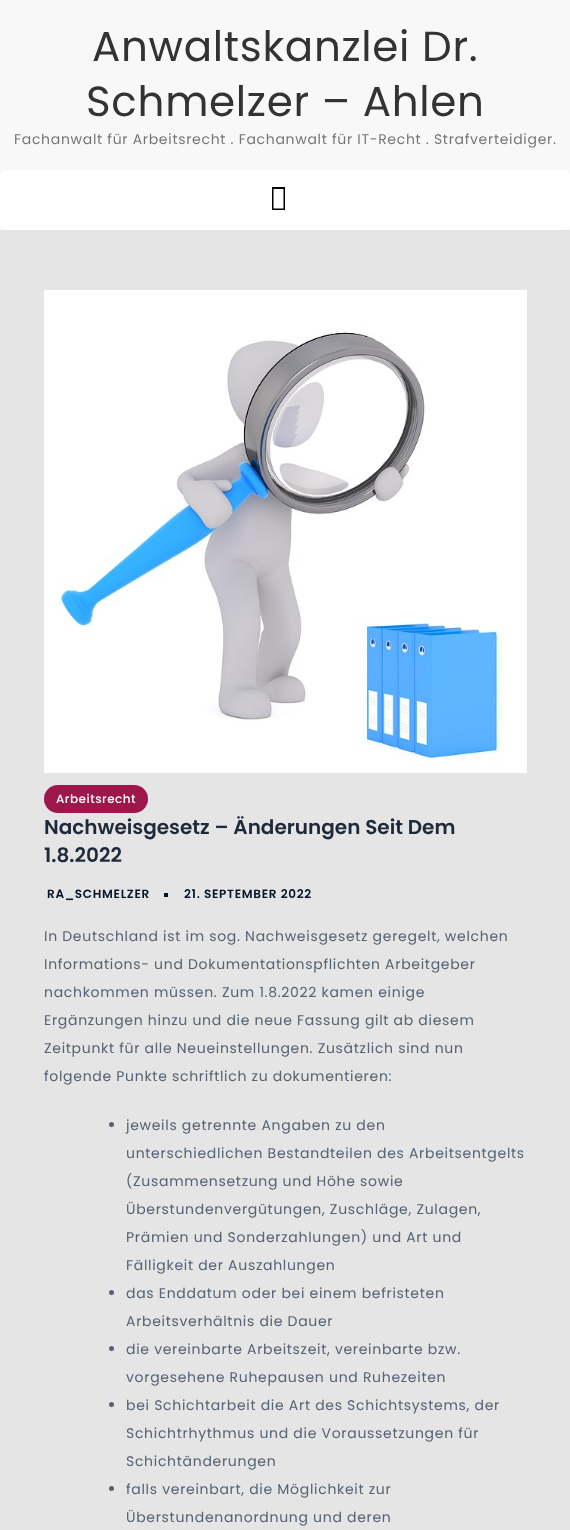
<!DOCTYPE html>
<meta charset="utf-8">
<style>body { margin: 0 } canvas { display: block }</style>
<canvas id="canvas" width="570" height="1530"></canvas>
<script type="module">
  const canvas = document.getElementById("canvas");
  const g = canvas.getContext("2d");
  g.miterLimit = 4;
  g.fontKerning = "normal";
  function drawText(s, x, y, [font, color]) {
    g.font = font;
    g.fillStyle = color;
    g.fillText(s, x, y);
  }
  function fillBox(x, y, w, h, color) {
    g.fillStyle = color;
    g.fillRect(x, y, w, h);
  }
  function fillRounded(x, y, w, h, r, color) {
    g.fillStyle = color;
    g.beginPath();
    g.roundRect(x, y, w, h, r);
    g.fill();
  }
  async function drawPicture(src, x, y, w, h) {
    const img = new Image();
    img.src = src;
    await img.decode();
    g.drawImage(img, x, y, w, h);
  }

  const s1 = ["42px Poppins", "#333333"];
  const s2 = ["14px Poppins", "#777777"];
  const s3 = ["500 12px Poppins", "#FFFFFF"];
  const s4 = ["600 20px Poppins", "#1E2939"];
  const s5 = ["600 12px Poppins", "#041527"];
  const s6 = ["14px Poppins", "#566273"];

  fillBox(0, 0, 570, 1530, "#E5E5E5");
  fillBox(0, 0, 570, 230, "#F8F8F8");
  g.letterSpacing = "0.7px";
  drawText("Anwaltskanzlei Dr.", 92, 61, s1);
  drawText("Schmelzer – Ahlen", 86, 116, s1);
  drawText("Fachanwalt für Arbeitsrecht . Fachanwalt für IT-Recht . Strafverteidiger.", 14, 144, s2);
  fillRounded(0, 170, 570, 60, 5, "#FFFFFF");
  g.fillStyle = "#000000";
  g.beginPath();
  g.moveTo(272, 210);
  g.lineTo(272, 187);
  g.lineTo(285, 187);
  g.lineTo(285, 210);
  g.closePath();
  g.moveTo(273.5, 208.5);
  g.lineTo(283.5, 208.5);
  g.lineTo(283.5, 189);
  g.lineTo(273.5, 189);
  g.closePath();
  g.fill();
  await drawPicture("pic1.png", 44, 290, 483, 483);
  fillRounded(44, 785, 104, 28, 14, "#9D174D");
  g.letterSpacing = "0.5px";
  drawText("Arbeitsrecht", 56, 803, s3);
  g.letterSpacing = "0px";
  drawText("Nachweisgesetz – Änderungen Seit Dem", 44, 834, s4);
  drawText("1.8.2022", 44, 862, s4);
  g.letterSpacing = "0.7px";
  drawText("RA_SCHMELZER", 47, 898, s5);
  fillBox(164, 893, 4, 4, "#041527");
  drawText("21. SEPTEMBER 2022", 184, 898, s5);
  drawText("In Deutschland ist im sog. Nachweisgesetz geregelt, welchen", 44, 941, s6);
  drawText("Informations- und Dokumentationspflichten Arbeitgeber", 44, 969, s6);
  drawText("nachkommen müssen. Zum 1.8.2022 kamen einige", 44, 997, s6);
  drawText("Ergänzungen hinzu und die neue Fassung gilt ab diesem", 44, 1025, s6);
  drawText("Zeitpunkt für alle Neueinstellungen. Zusätzlich sind nun", 44, 1053, s6);
  drawText("folgende Punkte schriftlich zu dokumentieren:", 44, 1081, s6);
  g.beginPath();
  g.arc(111.5, 1124.5, 2.5, 0, Math.PI * 2);
  g.fill();
  drawText("jeweils getrennte Angaben zu den", 126, 1130, s6);
  drawText("unterschiedlichen Bestandteilen des Arbeitsentgelts", 126, 1158, s6);
  drawText("(Zusammensetzung und Höhe sowie", 126, 1186, s6);
  drawText("Überstundenvergütungen, Zuschläge, Zulagen,", 126, 1214, s6);
  drawText("Prämien und Sonderzahlungen) und Art und", 126, 1242, s6);
  drawText("Fälligkeit der Auszahlungen", 126, 1270, s6);
  g.beginPath();
  g.arc(111.5, 1292.5, 2.5, 0, Math.PI * 2);
  g.fill();
  drawText("das Enddatum oder bei einem befristeten", 126, 1298, s6);
  drawText("Arbeitsverhältnis die Dauer", 126, 1326, s6);
  g.beginPath();
  g.arc(111.5, 1348.5, 2.5, 0, Math.PI * 2);
  g.fill();
  drawText("die vereinbarte Arbeitszeit, vereinbarte bzw.", 126, 1354, s6);
  drawText("vorgesehene Ruhepausen und Ruhezeiten", 126, 1382, s6);
  g.beginPath();
  g.arc(111.5, 1404.5, 2.5, 0, Math.PI * 2);
  g.fill();
  drawText("bei Schichtarbeit die Art des Schichtsystems, der", 126, 1410, s6);
  drawText("Schichtrhythmus und die Voraussetzungen für", 126, 1438, s6);
  drawText("Schichtänderungen", 126, 1466, s6);
  g.beginPath();
  g.arc(111.5, 1488.5, 2.5, 0, Math.PI * 2);
  g.fill();
  drawText("falls vereinbart, die Möglichkeit zur", 126, 1494, s6);
  drawText("Überstundenanordnung und deren", 126, 1522, s6);
</script>
